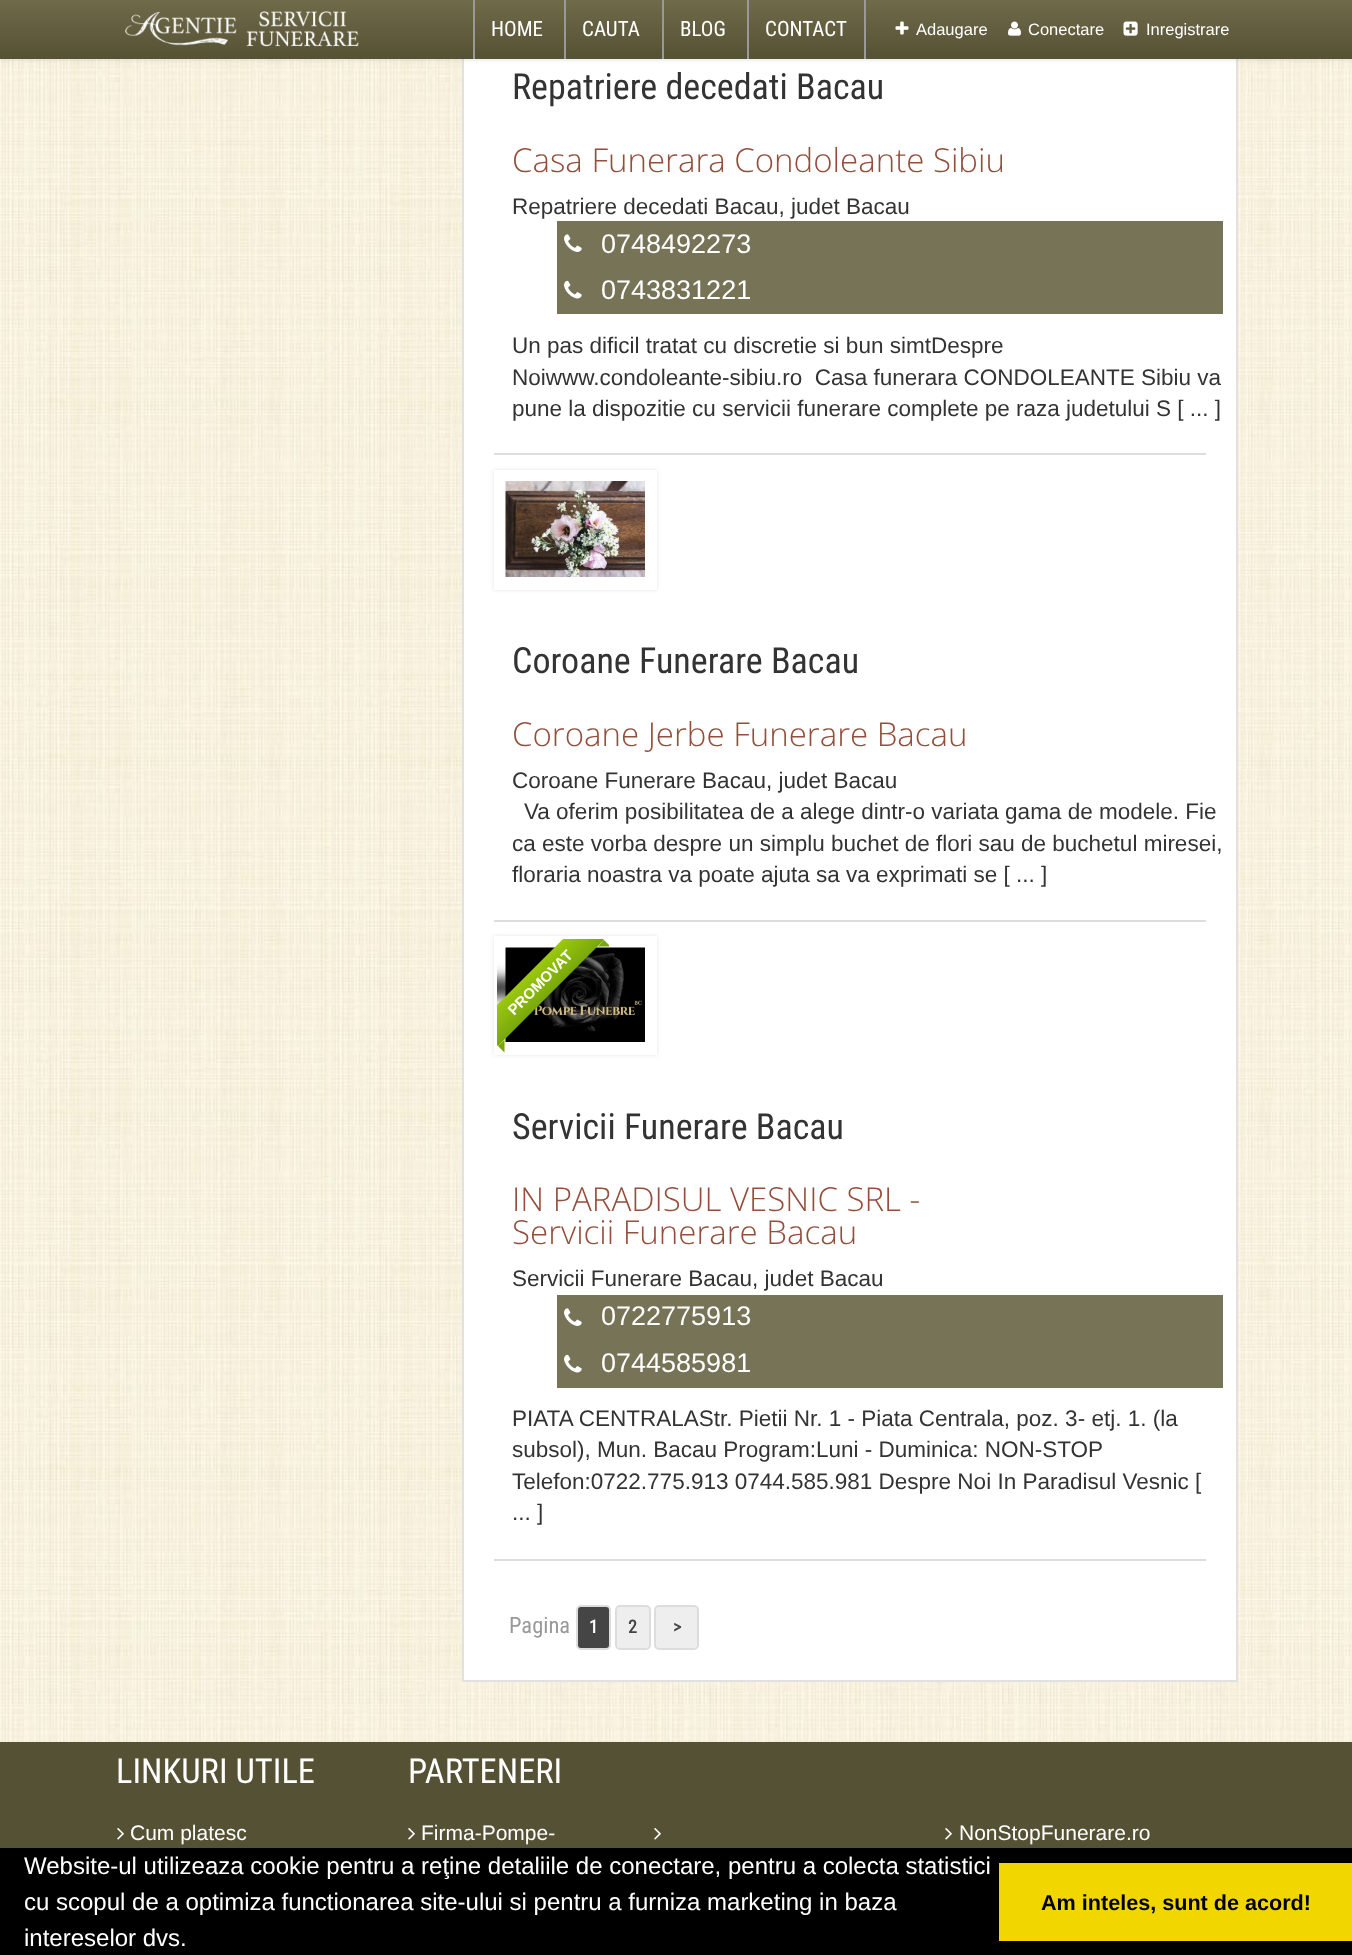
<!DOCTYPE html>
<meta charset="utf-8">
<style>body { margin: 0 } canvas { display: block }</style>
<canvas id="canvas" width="1352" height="1955"></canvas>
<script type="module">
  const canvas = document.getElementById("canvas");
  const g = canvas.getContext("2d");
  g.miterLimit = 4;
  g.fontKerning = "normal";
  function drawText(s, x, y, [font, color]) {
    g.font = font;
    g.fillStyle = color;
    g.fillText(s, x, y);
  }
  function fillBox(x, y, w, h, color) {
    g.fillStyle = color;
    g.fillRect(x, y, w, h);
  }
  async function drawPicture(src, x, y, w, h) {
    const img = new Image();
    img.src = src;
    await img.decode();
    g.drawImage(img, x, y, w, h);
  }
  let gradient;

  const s1 = ["21px Roboto Condensed", "#FFFFFF"];
  const s2 = ["16.5px Liberation Sans", "#FFFFFF"];
  const s3 = ["36px Roboto Condensed", "#333333"];
  const s4 = ["300 33px Open Sans", "#944E3B"];
  const s5 = ["22.5px Liberation Sans", "#333333"];
  const s6 = ["27px Liberation Sans", "#FFFFFF"];
  const s7 = ["22.5px Roboto Condensed", "#999999"];
  const s8 = ["bold 18px Roboto Condensed", "#FFFFFF"];
  const s9 = ["bold 18px Roboto Condensed", "#454545"];
  const s10 = ["34.5px Roboto Condensed", "#FFFFFF"];
  const s11 = ["21px Liberation Sans", "#FFFFFF"];
  const s12 = ["24px Liberation Sans", "#FFFFFF"];
  const s13 = ["bold 21.6px Liberation Sans", "#000000"];

  fillBox(0, 0, 1352, 1955, "#FFFFFF");
  await drawPicture("pic1.png", 0, 1741, 1352, 1);
  await drawPicture("pic6.png", 0, 59, 1352, 1682);
  fillBox(464, 59, 772, 1621, "#FFFFFF");
  g.strokeStyle = "#E1E1E1";
  g.lineWidth = 2;
  g.strokeRect(463, -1, 774, 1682);
  g.fillStyle = "rgba(0, 0, 0, 0.1)";
  g.filter = "blur(2px)";
  g.beginPath();
  g.rect(0, 2, 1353, 58);
  g.fill();
  g.filter = "none";
  gradient = g.createLinearGradient(677, 0, 677, 59);
  gradient.addColorStop(0, "#6F6A49");
  gradient.addColorStop(1, "#555134");
  g.fillStyle = gradient;
  g.fillRect(0, 0, 1352, 59);
  await drawPicture("pic2.png", 125, 11, 234, 36);
  fillBox(864, 0, 2, 59, "#999999");
  fillBox(473, 0, 2, 59, "#999999");
  drawText("HOME", 491, 36, s1);
  fillBox(564, 0, 2, 59, "#999999");
  drawText("CAUTA", 582, 36, s1);
  fillBox(662, 0, 2, 59, "#999999");
  drawText("BLOG", 680, 36, s1);
  fillBox(747, 0, 2, 59, "#999999");
  drawText("CONTACT", 765, 36, s1);
  await drawPicture("pic3.png", 895, 21, 14, 14);
  drawText("Adaugare", 916, 35, s2);
  await drawPicture("pic4.png", 1008, 21, 13, 15);
  drawText("Conectare", 1028, 35, s2);
  await drawPicture("pic5.png", 1123, 21, 15, 15);
  drawText("Inregistrare", 1146, 35, s2);
  fillBox(494, 453, 712, 2, "#DDDDDD");
  drawText("Repatriere decedati Bacau", 512, 99, s3);
  drawText("Casa Funerara Condoleante Sibiu", 512, 172, s4);
  drawText("Repatriere decedati Bacau, judet Bacau", 512, 214, s5);
  fillBox(557, 221, 666, 93, "#777357");
  await drawPicture("pic7.png", 564, 234, 18, 18);
  drawText("0748492273", 601, 253, s6);
  await drawPicture("pic8.png", 564, 280, 18, 19);
  drawText("0743831221", 601, 299, s6);
  drawText("Un pas dificil tratat cu discretie si bun simtDespre", 512, 353, s5);
  drawText("Noiwww.condoleante-sibiu.ro  Casa funerara CONDOLEANTE Sibiu va", 512, 385, s5);
  drawText("pune la dispozitie cu servicii funerare complete pe raza judetului S [ ... ]", 512, 416, s5);
  fillBox(494, 920, 712, 2, "#DDDDDD");
  g.fillStyle = "rgba(0, 0, 0, 0.1)";
  g.filter = "blur(2px)";
  g.beginPath();
  g.rect(494, 470, 163, 120);
  g.fill();
  g.filter = "none";
  g.strokeStyle = "#FFFFFF";
  g.lineWidth = 11;
  g.strokeRect(499.5, 475.5, 152, 109);
  g.lineWidth = 2;
  g.strokeRect(505, 481, 141, 97);
  await drawPicture("pic9.png", 505, 481, 140, 96);
  drawText("Coroane Funerare Bacau", 512, 673, s3);
  drawText("Coroane Jerbe Funerare Bacau", 512, 746, s4);
  drawText("Coroane Funerare Bacau, judet Bacau", 512, 788, s5);
  drawText("Va oferim posibilitatea de a alege dintr-o variata gama de modele. Fie", 524, 819, s5);
  drawText("ca este vorba despre un simplu buchet de flori sau de buchetul miresei,", 512, 851, s5);
  drawText("floraria noastra va poate ajuta sa va exprimati se [ ... ]", 512, 882, s5);
  fillBox(494, 1559, 712, 2, "#DDDDDD");
  g.fillStyle = "rgba(0, 0, 0, 0.1)";
  g.filter = "blur(2px)";
  g.beginPath();
  g.rect(494, 936, 163, 119);
  g.fill();
  g.filter = "none";
  g.lineWidth = 11;
  g.strokeRect(499.5, 941.5, 152, 108);
  g.lineWidth = 2;
  g.strokeRect(505, 948, 141, 95);
  await drawPicture("pic10.png", 505, 947, 140, 95);
  g.save();
  g.beginPath();
  g.rect(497, 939, 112, 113);
  g.clip();
  g.fillStyle = "#000000";
  g.filter = "blur(7.5px)";
  g.beginPath();
  g.rect(473, 980, 135, 15);
  g.fill();
  g.filter = "none";
  g.restore();
  g.save();
  g.beginPath();
  g.rect(497, 939, 112, 113);
  g.clip();
  gradient = g.createLinearGradient(530, 972, 551, 993);
  gradient.addColorStop(0, "#9BC90D");
  gradient.addColorStop(1, "#79A70A");
  g.fillStyle = gradient;
  g.beginPath();
  g.moveTo(477, 1025);
  g.lineTo(583, 919);
  g.lineTo(604, 940);
  g.lineTo(498, 1046);
  g.closePath();
  g.fill();
  g.restore();
  g.fillStyle = "#79A70A";
  g.beginPath();
  g.moveTo(598, 946.5);
  g.lineTo(604, 940);
  g.lineTo(604, 946.5);
  g.closePath();
  g.fill();
  g.save();
  g.beginPath();
  g.rect(497, 939, 112, 113);
  g.clip();
  g.beginPath();
  g.moveTo(604, 940);
  g.lineTo(610.5, 946.5);
  g.lineTo(604, 946.5);
  g.closePath();
  g.fill();
  g.restore();
  g.font = "bold 15px Liberation Sans";
  g.fillStyle = "#FFFFFF";
  g.save();
  g.translate(514, 1016);
  g.rotate(-45 * Math.PI / 180);
  g.fillText("PROMOVAT", 0, 0);
  g.restore();
  g.fillStyle = "#79A70A";
  g.beginPath();
  g.moveTo(498, 1046);
  g.lineTo(504.5, 1040);
  g.lineTo(504.5, 1046);
  g.closePath();
  g.moveTo(504.5, 1052.5);
  g.lineTo(498, 1046);
  g.lineTo(504.5, 1046);
  g.closePath();
  g.fill();
  drawText("Servicii Funerare Bacau", 512, 1139, s3);
  drawText("IN PARADISUL VESNIC SRL -", 512, 1211, s4);
  drawText("Servicii Funerare Bacau", 512, 1244, s4);
  drawText("Servicii Funerare Bacau, judet Bacau", 512, 1286, s5);
  fillBox(557, 1295, 666, 93, "#777357");
  await drawPicture("pic7.png", 564, 1308, 18, 18);
  drawText("0722775913", 601, 1325, s6);
  await drawPicture("pic8.png", 564, 1354, 18, 19);
  drawText("0744585981", 601, 1372, s6);
  drawText("PIATA CENTRALAStr. Pietii Nr. 1 - Piata Centrala, poz. 3- etj. 1. (la", 512, 1426, s5);
  drawText("subsol), Mun. Bacau Program:Luni - Duminica: NON-STOP", 512, 1457, s5);
  drawText("Telefon:0722.775.913 0744.585.981 Despre Noi In Paradisul Vesnic [", 512, 1489, s5);
  drawText("... ]", 512, 1520, s5);
  drawText("Pagina", 509, 1633, s7);
  g.fillStyle = "#454545";
  g.beginPath();
  g.roundRect(577, 1606, 33, 43, 4);
  g.fill();
  g.strokeStyle = "#DDDDDD";
  g.stroke();
  drawText("1", 589, 1633, s8);
  g.fillStyle = "#EEEEEE";
  g.beginPath();
  g.roundRect(616, 1606, 34, 43, 4);
  g.fill();
  g.stroke();
  drawText("2", 628, 1633, s9);
  g.fillStyle = "#EEEEEE";
  g.beginPath();
  g.roundRect(655, 1606, 43, 43, 4);
  g.fill();
  g.stroke();
  drawText(">", 673, 1633, s9);
  fillBox(0, 1742, 1352, 106, "#555134");
  drawText("LINKURI UTILE", 116, 1783, s10);
  await drawPicture("pic11.png", 117, 1828, 7, 12);
  drawText("Cum platesc", 130, 1840, s11);
  drawText("PARTENERI", 408, 1783, s10);
  await drawPicture("pic11.png", 408, 1828, 7, 12);
  drawText("Firma-Pompe-", 421, 1840, s11);
  await drawPicture("pic11.png", 654, 1828, 7, 12);
  await drawPicture("pic11.png", 945, 1828, 7, 12);
  drawText("NonStopFunerare.ro", 959, 1840, s11);
  fillBox(0, 1848, 1352, 107, "#000000");
  drawText("Website-ul utilizeaza cookie pentru a reţine detaliile de conectare, pentru a colecta statistici", 24, 1874, s12);
  drawText("cu scopul de a optimiza functionarea site-ului si pentru a furniza marketing in baza", 24, 1910, s12);
  drawText("intereselor dvs.", 24, 1946, s12);
  fillBox(999, 1863, 353, 78, "#F1D600");
  drawText("Am inteles, sunt de acord!", 1041, 1910, s13);
</script>
